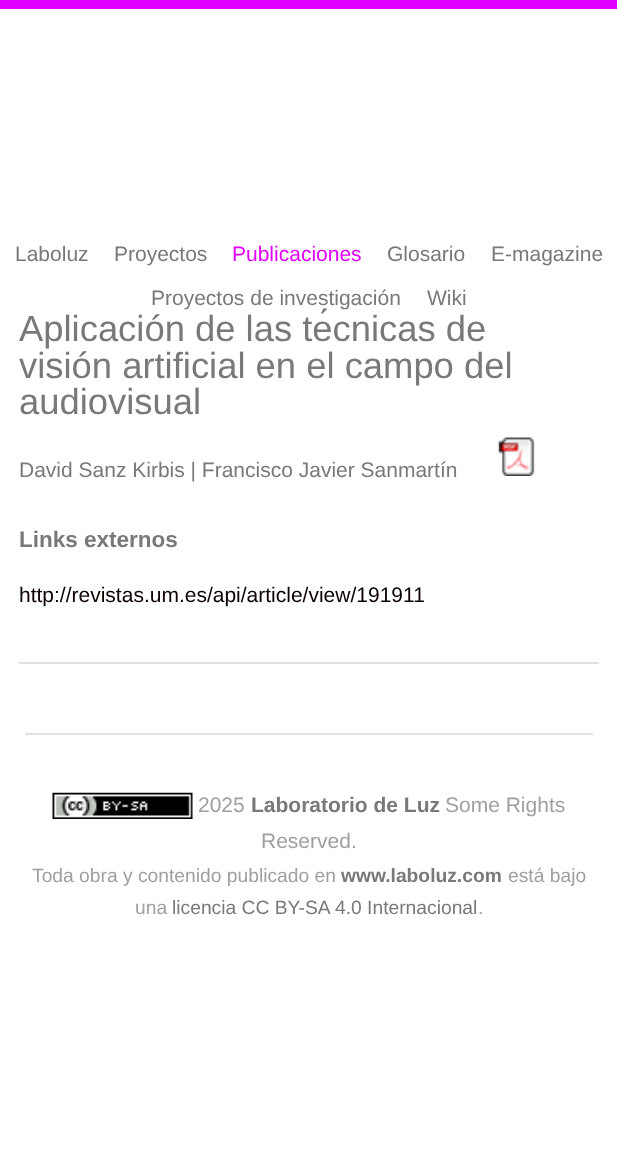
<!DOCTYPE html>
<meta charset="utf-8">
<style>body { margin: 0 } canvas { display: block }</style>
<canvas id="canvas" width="617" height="1152"></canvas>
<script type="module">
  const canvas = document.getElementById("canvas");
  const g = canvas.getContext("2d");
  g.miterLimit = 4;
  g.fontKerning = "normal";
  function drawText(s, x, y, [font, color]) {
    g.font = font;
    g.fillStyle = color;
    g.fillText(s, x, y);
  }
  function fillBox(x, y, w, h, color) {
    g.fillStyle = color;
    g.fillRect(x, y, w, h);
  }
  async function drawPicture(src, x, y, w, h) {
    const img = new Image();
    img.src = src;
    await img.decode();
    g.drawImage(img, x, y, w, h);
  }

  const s1 = ["21px Liberation Sans", "#797979"];
  const s2 = ["21px Liberation Sans", "#E100FF"];
  const s3 = ["36.4px Liberation Sans", "#797979"];
  const s4 = ["bold 22.5px Liberation Sans", "#797979"];
  const s5 = ["21px Liberation Sans", "#0C0000"];
  const s6 = ["21px Liberation Sans", "#9F9F9F"];
  const s7 = ["bold 21px Liberation Sans", "#797979"];
  const s8 = ["19.25px Liberation Sans", "#9F9F9F"];
  const s9 = ["bold 19.25px Liberation Sans", "#797979"];
  const s10 = ["19.25px Liberation Sans", "#797979"];

  fillBox(0, 0, 617, 1152, "#FFFFFF");
  fillBox(0, 0, 617, 9, "#E100FF");
  drawText("Laboluz", 15, 261, s1);
  drawText("Proyectos", 114, 261, s1);
  drawText("Publicaciones", 232, 261, s2);
  drawText("Glosario", 387, 261, s1);
  drawText("E-magazine", 491, 261, s1);
  drawText("Proyectos de investigación", 151, 305, s1);
  drawText("Wiki", 427, 305, s1);
  fillBox(19, 662, 580, 2, "#E3E2DE");
  drawText("Aplicación de las técnicas de", 19, 341, s3);
  drawText("visión artificial en el campo del", 19, 378, s3);
  drawText("audiovisual", 19, 414, s3);
  drawText("David Sanz Kirbis | Francisco Javier Sanmartín", 19, 477, s1);
  await drawPicture("pic1.png", 498, 437, 37, 39);
  drawText("Links externos", 19, 547, s4);
  drawText("http://revistas.um.es/api/article/view/191911", 19, 602, s5);
  fillBox(25, 733, 568, 2, "#E3E2DE");
  await drawPicture("pic2.png", 52, 792, 141, 27);
  drawText("2025", 198, 812, s6);
  drawText("Laboratorio de Luz", 251, 812, s7);
  drawText("Some Rights", 445, 812, s6);
  drawText("Reserved.", 261, 848, s6);
  drawText("Toda obra y contenido publicado en", 32, 882, s8);
  drawText("www.laboluz.com", 341, 882, s9);
  drawText("está bajo", 508, 882, s8);
  drawText("una", 135, 914, s8);
  drawText("licencia CC BY-SA 4.0 Internacional", 172, 914, s10);
  drawText(".", 478, 914, s8);
</script>
